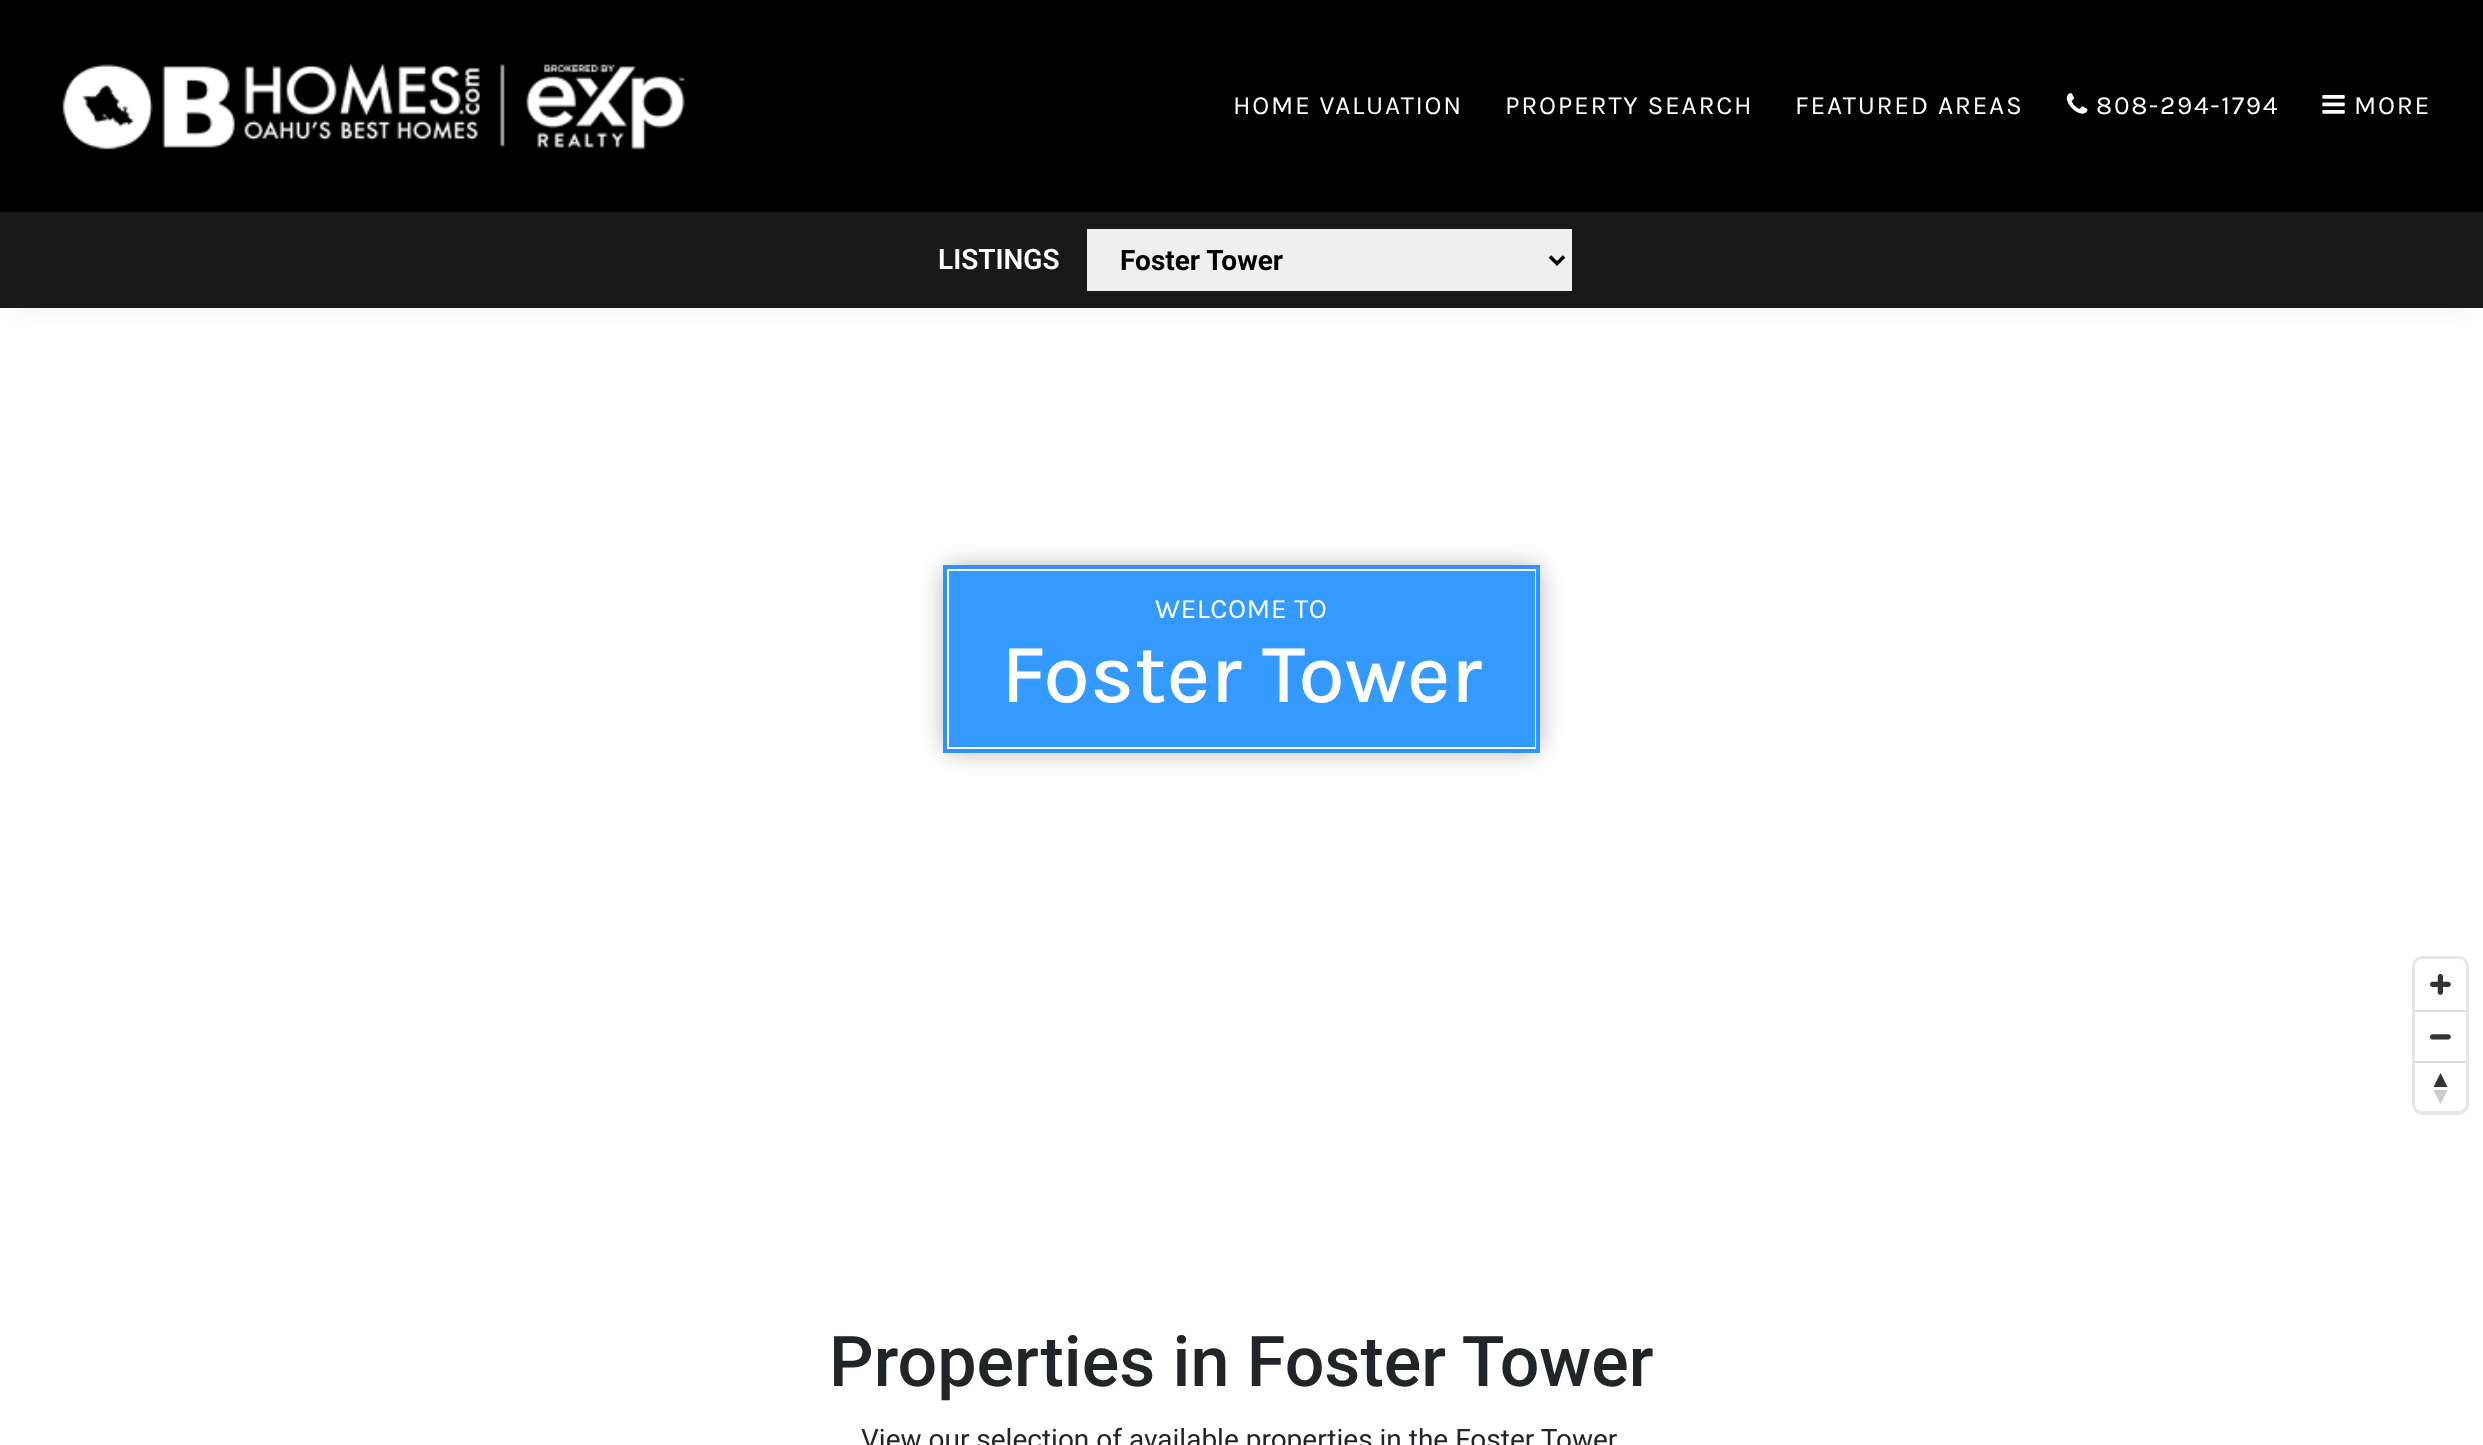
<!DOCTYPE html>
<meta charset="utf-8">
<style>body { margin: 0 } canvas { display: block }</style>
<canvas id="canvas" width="2483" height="1445"></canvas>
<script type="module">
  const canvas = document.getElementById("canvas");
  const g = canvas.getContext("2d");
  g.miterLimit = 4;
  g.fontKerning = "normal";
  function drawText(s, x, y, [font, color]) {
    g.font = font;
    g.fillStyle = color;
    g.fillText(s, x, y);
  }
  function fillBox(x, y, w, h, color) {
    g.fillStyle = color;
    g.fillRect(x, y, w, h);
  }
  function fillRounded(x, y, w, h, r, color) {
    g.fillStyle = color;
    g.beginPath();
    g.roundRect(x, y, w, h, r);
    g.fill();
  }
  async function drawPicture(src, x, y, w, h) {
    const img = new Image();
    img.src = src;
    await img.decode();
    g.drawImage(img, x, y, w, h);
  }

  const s1 = ["26.25px Karla", "#FFFFFF"];
  const s2 = ["600 28px Roboto", "#FFFFFF"];
  const s3 = ["bold 28px Roboto", "#000000"];
  const s4 = ["28px Karla", "#FFFFFF"];
  const s5 = ["500 84px Karla", "#FFFFFF"];
  const s6 = ["500 70px Roboto", "#212529"];
  const s7 = ["28px Roboto", "#212529"];

  fillBox(0, 0, 2483, 1445, "#FFFFFF");
  fillBox(0, 0, 2483, 212, "#000000");
  await drawPicture("pic1.png", 62, 63, 623, 87);
  g.letterSpacing = "1.75px";
  drawText("HOME VALUATION", 1233, 114, s1);
  drawText("PROPERTY SEARCH", 1505, 114, s1);
  drawText("FEATURED AREAS", 1795, 114, s1);
  await drawPicture("pic2.png", 2066, 93, 22, 21);
  drawText("808-294-1794", 2096, 114, s1);
  await drawPicture("pic3.png", 2322, 95, 23, 19);
  drawText("MORE", 2354, 114, s1);
  g.fillStyle = "rgba(0, 0, 0, 0.07)";
  g.filter = "blur(13px)";
  g.beginPath();
  g.rect(11, 233, 2462, 75);
  g.fill();
  g.filter = "none";
  fillBox(0, 212, 2483, 96, "#191919");
  g.letterSpacing = "0px";
  drawText("LISTINGS", 938, 269, s2);
  fillBox(1087, 229, 485, 62, "#EFEFEF");
  g.beginPath();
  g.moveTo(1550, 256.5);
  g.lineTo(1557, 263.5);
  g.lineTo(1564, 256.5);
  g.strokeStyle = "#000000";
  g.lineWidth = 3.5;
  g.stroke();
  drawText("Foster Tower", 1120, 270, s3);
  g.save();
  g.beginPath();
  g.moveTo(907, 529);
  g.lineTo(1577, 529);
  g.lineTo(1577, 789);
  g.lineTo(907, 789);
  g.closePath();
  g.moveTo(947, 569);
  g.lineTo(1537, 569);
  g.lineTo(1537, 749);
  g.lineTo(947, 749);
  g.closePath();
  g.clip("evenodd");
  g.fillStyle = "rgba(0, 0, 0, 0.38)";
  g.filter = "blur(13px)";
  g.beginPath();
  g.rect(947, 569, 590, 180);
  g.fill();
  g.filter = "none";
  g.restore();
  g.fillStyle = "rgba(1, 129, 255, 0.8)";
  g.beginPath();
  g.rect(948, 570, 588, 178);
  g.fill();
  g.strokeStyle = "#FFFFFF";
  g.lineWidth = 2;
  g.stroke();
  g.strokeStyle = "rgba(1, 129, 255, 0.8)";
  g.lineWidth = 4;
  g.strokeRect(945, 567, 593, 184);
  g.letterSpacing = "0.5px";
  drawText("WELCOME TO", 1155, 618, s4);
  g.letterSpacing = "0px";
  drawText("Foster Tower", 1001, 702, s5);
  g.beginPath();
  g.roundRect(2414, 958, 53, 155, 9);
  g.strokeStyle = "#E6E6E6";
  g.stroke();
  fillRounded(2415, 959, 51, 152, 7, "#FFFFFF");
  await drawPicture("pic4.png", 2429, 973, 22, 22);
  fillBox(2415, 1010, 51, 2, "#DDDDDD");
  await drawPicture("pic5.png", 2429, 1034, 22, 6);
  fillBox(2415, 1061, 51, 2, "#DDDDDD");
  g.fillStyle = "#333333";
  g.beginPath();
  g.moveTo(2433.5, 1087);
  g.lineTo(2440.5, 1073);
  g.lineTo(2447.5, 1087);
  g.closePath();
  g.fill();
  g.fillStyle = "#CCCCCC";
  g.beginPath();
  g.moveTo(2433.5, 1090);
  g.lineTo(2440.5, 1104);
  g.lineTo(2447.5, 1090);
  g.closePath();
  g.fill();
  drawText("Properties in Foster Tower", 829, 1386, s6);
  drawText("View our selection of available properties in the Foster Tower.", 861, 1449, s7);
</script>
